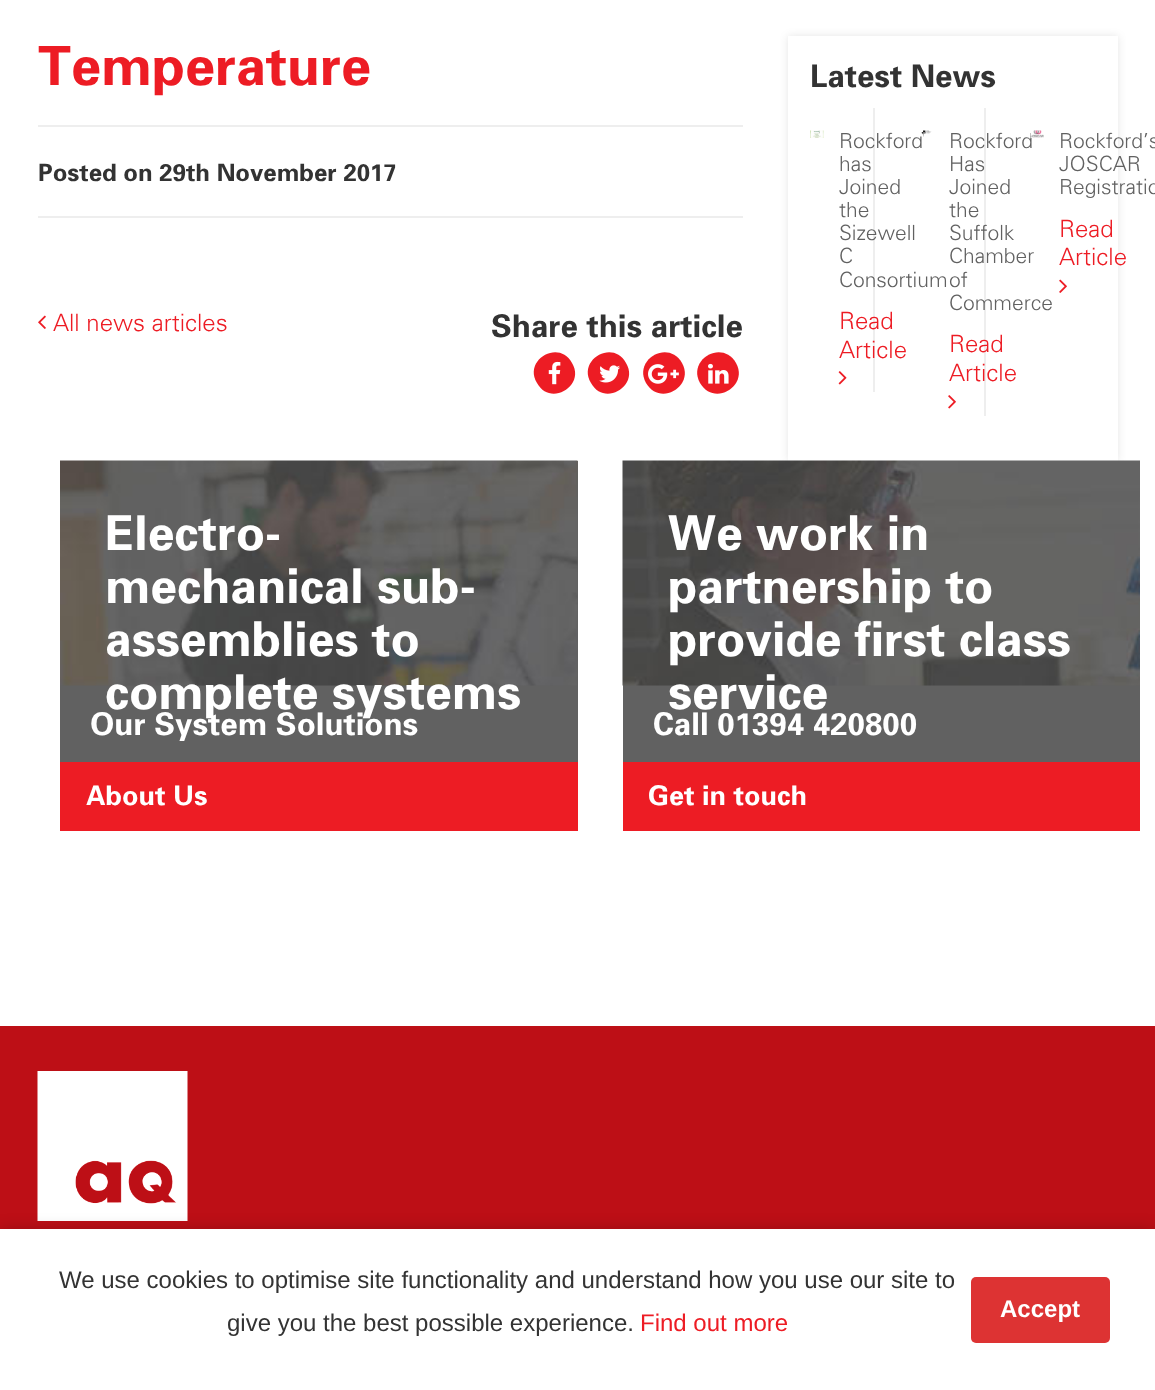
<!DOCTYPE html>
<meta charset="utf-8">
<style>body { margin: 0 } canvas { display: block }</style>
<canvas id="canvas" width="1155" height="1390"></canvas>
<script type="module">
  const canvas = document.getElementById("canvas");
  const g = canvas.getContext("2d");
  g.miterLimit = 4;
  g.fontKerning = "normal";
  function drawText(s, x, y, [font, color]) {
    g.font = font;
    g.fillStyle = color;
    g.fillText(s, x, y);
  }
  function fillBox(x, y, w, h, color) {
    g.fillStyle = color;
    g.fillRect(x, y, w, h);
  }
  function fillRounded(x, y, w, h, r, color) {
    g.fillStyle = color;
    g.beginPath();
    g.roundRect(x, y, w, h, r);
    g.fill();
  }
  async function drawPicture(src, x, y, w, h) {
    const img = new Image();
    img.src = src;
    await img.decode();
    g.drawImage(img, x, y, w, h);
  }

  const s1 = ["bold 54px 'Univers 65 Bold'", "#ED1C24"];
  const s2 = ["bold 24px 'Univers 65 Bold'", "#333333"];
  const s3 = ["300 24px 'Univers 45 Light'", "#ED1C24"];
  const s4 = ["bold 31.25px 'Univers 65 Bold'", "#333333"];
  const s5 = ["300 21px 'Univers 45 Light'", "#616161"];
  const s6 = ["bold 48px 'Univers 65 Bold'", "#FFFFFF"];
  const s7 = ["bold 31.25px 'Univers 65 Bold'", "#FFFFFF"];
  const s8 = ["bold 27px 'Univers 65 Bold'", "#FFFFFF"];
  const s9 = ["24px Liberation Sans", "#333333"];
  const s10 = ["24px Liberation Sans", "#ED1C24"];
  const s11 = ["bold 24px Liberation Sans", "#FFFFFF"];

  fillBox(0, 0, 1155, 1390, "#FFFFFF");
  drawText("Temperature", 38, 85, s1);
  fillBox(38, 125, 705, 2, "#EEEEEE");
  drawText("Posted on 29th November 2017", 38, 181, s2);
  fillBox(38, 216, 705, 2, "#EEEEEE");
  await drawPicture("pic1.png", 38, 315, 8, 14);
  drawText("All news articles", 53, 331, s3);
  drawText("Share this article", 491, 337, s4);
  g.fillStyle = "#ED1C24";
  g.beginPath();
  g.moveTo(572, 363);
  g.bezierCurveTo(586, 386, 550, 407, 537, 383);
  g.bezierCurveTo(523, 360, 559, 339, 572, 363);
  g.closePath();
  g.fill();
  await drawPicture("pic2.png", 548, 361, 13, 24);
  g.beginPath();
  g.moveTo(626, 363);
  g.bezierCurveTo(640, 386, 604, 407, 591, 383);
  g.bezierCurveTo(577, 360, 613, 339, 626, 363);
  g.closePath();
  g.fill();
  await drawPicture("pic3.png", 599, 365, 21, 18);
  g.beginPath();
  g.moveTo(682, 363);
  g.bezierCurveTo(695, 386, 660, 407, 646, 383);
  g.bezierCurveTo(633, 360, 668, 339, 682, 363);
  g.closePath();
  g.fill();
  await drawPicture("pic4.png", 648, 364, 31, 20);
  g.beginPath();
  g.moveTo(736, 363);
  g.bezierCurveTo(749, 386, 714, 407, 700, 383);
  g.bezierCurveTo(687, 360, 722, 339, 736, 363);
  g.closePath();
  g.fill();
  await drawPicture("pic5.png", 708, 363, 21, 21);
  g.save();
  g.beginPath();
  g.moveTo(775, 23);
  g.lineTo(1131, 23);
  g.lineTo(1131, 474);
  g.lineTo(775, 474);
  g.closePath();
  g.moveTo(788, 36);
  g.lineTo(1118, 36);
  g.lineTo(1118, 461);
  g.lineTo(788, 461);
  g.closePath();
  g.clip("evenodd");
  g.fillStyle = "rgba(0, 0, 0, 0.1)";
  g.filter = "blur(4px)";
  g.beginPath();
  g.rect(788, 36, 330, 425);
  g.fill();
  g.filter = "none";
  g.restore();
  drawText("Latest News", 810, 87, s4);
  fillBox(873, 108, 2, 284, "#EEEEEE");
  await drawPicture("pic6.png", 810, 130, 14, 8);
  drawText("Rockford", 839, 148, s5);
  drawText("has", 839, 171, s5);
  drawText("Joined", 839, 194, s5);
  drawText("the", 839, 217, s5);
  drawText("Sizewell", 839, 240, s5);
  drawText("C", 839, 263, s5);
  drawText("Consortium", 839, 287, s5);
  drawText("Read", 839, 329, s3);
  drawText("Article", 839, 358, s3);
  await drawPicture("pic7.png", 838, 371, 9, 14);
  fillBox(984, 108, 2, 308, "#EEEEEE");
  await drawPicture("pic8.png", 920, 130, 12, 7);
  drawText("Rockford", 949, 148, s5);
  drawText("Has", 949, 171, s5);
  drawText("Joined", 949, 194, s5);
  drawText("the", 949, 217, s5);
  drawText("Suffolk", 949, 240, s5);
  drawText("Chamber", 949, 263, s5);
  drawText("of", 949, 287, s5);
  drawText("Commerce", 949, 310, s5);
  drawText("Read", 949, 352, s3);
  drawText("Article", 949, 381, s3);
  await drawPicture("pic9.png", 948, 395, 8, 14);
  await drawPicture("pic10.png", 1030, 130, 14, 8);
  drawText("Rockford’s", 1059, 148, s5);
  drawText("JOSCAR", 1059, 171, s5);
  drawText("Registratio", 1059, 194, s5);
  drawText("Read", 1059, 237, s3);
  drawText("Article", 1059, 265, s3);
  await drawPicture("pic11.png", 1059, 279, 8, 14);
  fillBox(60, 461, 518, 301, "#616161");
  await drawPicture("pic12.png", 60, 460, 518, 226);
  drawText("Electro-", 105, 550, s6);
  drawText("mechanical sub-", 105, 603, s6);
  drawText("assemblies to", 105, 656, s6);
  drawText("complete systems", 105, 709, s6);
  drawText("Our System Solutions", 90, 735, s7);
  fillBox(60, 762, 518, 69, "#ED1C24");
  drawText("About Us", 86, 805, s8);
  fillBox(623, 685, 517, 77, "#616161");
  await drawPicture("pic13.png", 622, 460, 518, 226);
  drawText("We work in", 668, 550, s6);
  drawText("partnership to", 668, 603, s6);
  drawText("provide first class", 668, 656, s6);
  drawText("service", 668, 709, s6);
  drawText("Call 01394 420800", 653, 735, s7);
  fillBox(623, 762, 517, 69, "#ED1C24");
  drawText("Get in touch", 648, 805, s8);
  fillBox(0, 1026, 1155, 203, "#BD0F16");
  await drawPicture("pic14.png", 37, 1071, 151, 150);
  g.fillStyle = "rgba(0, 0, 0, 0.2)";
  g.filter = "blur(7.5px)";
  g.beginPath();
  g.rect(0, 1229, 1155, 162);
  g.fill();
  g.filter = "none";
  fillBox(0, 1229, 1155, 161, "#FFFFFF");
  drawText("We use cookies to optimise site functionality and understand how you use our site to", 59, 1288, s9);
  drawText("give you the best possible experience.", 227, 1331, s9);
  drawText("Find out more", 640, 1331, s10);
  fillRounded(971, 1277, 139, 66, 5, "#DD3333");
  drawText("Accept", 1000, 1317, s11);
</script>
